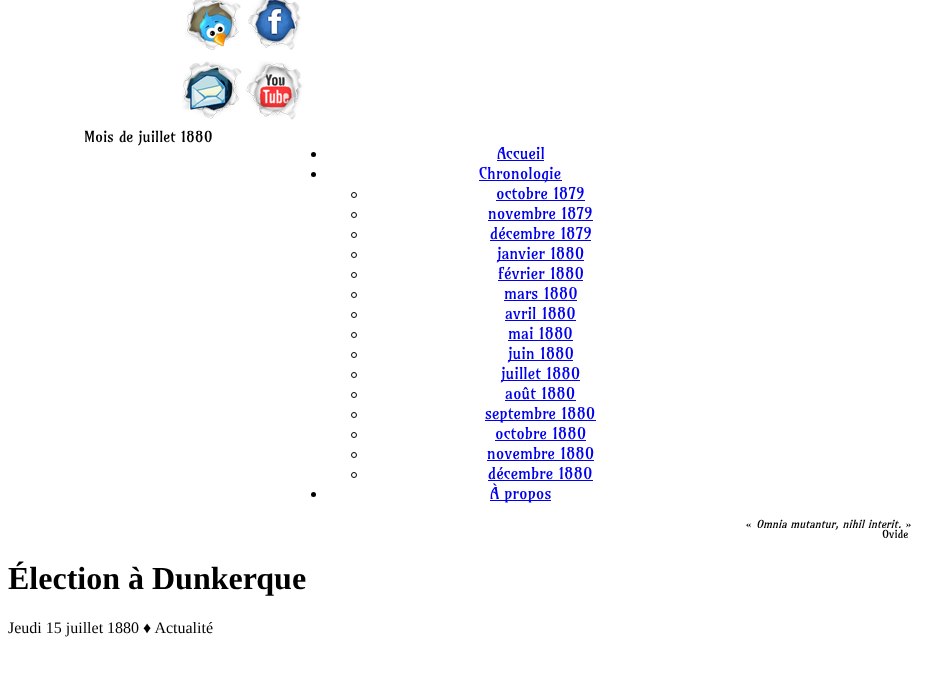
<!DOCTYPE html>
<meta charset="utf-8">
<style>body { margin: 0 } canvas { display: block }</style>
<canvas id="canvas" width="925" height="682"></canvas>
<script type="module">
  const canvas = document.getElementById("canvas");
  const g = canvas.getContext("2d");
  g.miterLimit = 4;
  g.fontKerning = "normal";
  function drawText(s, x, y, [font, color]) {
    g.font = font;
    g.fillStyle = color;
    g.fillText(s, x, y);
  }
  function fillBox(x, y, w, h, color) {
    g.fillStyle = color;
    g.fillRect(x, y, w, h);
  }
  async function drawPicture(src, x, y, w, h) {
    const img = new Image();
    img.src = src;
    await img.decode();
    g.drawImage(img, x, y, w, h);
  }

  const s1 = ["15px Amarante", "#000000"];
  const s2 = ["16px Amarante", "#0000EE"];
  const s3 = ["11px Amarante", "#000000"];
  const s4 = ["italic 11px Amarante", "#000000"];
  const s5 = ["bold 32px Liberation Serif", "#000000"];
  const s6 = ["16px Liberation Serif", "#000000"];

  fillBox(0, 0, 925, 682, "#FFFFFF");
  await drawPicture("pic1.png", 185, 0, 56, 50);
  await drawPicture("pic2.png", 248, 0, 53, 50);
  await drawPicture("pic3.png", 182, 61, 60, 58);
  await drawPicture("pic4.png", 246, 61, 56, 59);
  drawText("Mois de juillet 1880", 84, 142, s1);
  g.beginPath();
  g.arc(313.5, 154.5, 2.5, 0, Math.PI * 2);
  g.fill();
  drawText("Accueil", 497, 159, s2);
  fillBox(497, 160, 47, 1, "#0000EE");
  g.fillStyle = "#000000";
  g.beginPath();
  g.arc(313.5, 174.5, 2.5, 0, Math.PI * 2);
  g.fill();
  fillBox(479, 180, 83, 1, "#0000EE");
  drawText("Chronologie", 479, 179, s2);
  g.beginPath();
  g.arc(354, 195, 2.5, 0, Math.PI * 2);
  g.strokeStyle = "#000000";
  g.stroke();
  drawText("octobre 1879", 496, 199, s2);
  fillBox(496, 200, 89, 1, "#0000EE");
  g.beginPath();
  g.arc(354, 215, 2.5, 0, Math.PI * 2);
  g.stroke();
  drawText("novembre 1879", 488, 219, s2);
  fillBox(488, 220, 105, 1, "#0000EE");
  g.beginPath();
  g.arc(354, 235, 2.5, 0, Math.PI * 2);
  g.stroke();
  drawText("décembre 1879", 490, 239, s2);
  fillBox(490, 240, 101, 1, "#0000EE");
  g.beginPath();
  g.arc(354, 255, 2.5, 0, Math.PI * 2);
  g.stroke();
  fillBox(497, 260, 87, 1, "#0000EE");
  drawText("janvier 1880", 497, 259, s2);
  g.beginPath();
  g.arc(354, 275, 2.5, 0, Math.PI * 2);
  g.stroke();
  drawText("février 1880", 498, 279, s2);
  fillBox(498, 280, 85, 1, "#0000EE");
  g.beginPath();
  g.arc(354, 295, 2.5, 0, Math.PI * 2);
  g.stroke();
  drawText("mars 1880", 504, 299, s2);
  fillBox(504, 300, 73, 1, "#0000EE");
  g.beginPath();
  g.arc(354, 315, 2.5, 0, Math.PI * 2);
  g.stroke();
  drawText("avril 1880", 505, 319, s2);
  fillBox(505, 320, 71, 1, "#0000EE");
  g.beginPath();
  g.arc(354, 335, 2.5, 0, Math.PI * 2);
  g.stroke();
  drawText("mai 1880", 508, 339, s2);
  fillBox(508, 340, 65, 1, "#0000EE");
  g.beginPath();
  g.arc(354, 355, 2.5, 0, Math.PI * 2);
  g.stroke();
  fillBox(508, 360, 65, 1, "#0000EE");
  drawText("juin 1880", 508, 359, s2);
  g.beginPath();
  g.arc(354, 375, 2.5, 0, Math.PI * 2);
  g.stroke();
  fillBox(501, 380, 79, 1, "#0000EE");
  drawText("juillet 1880", 501, 379, s2);
  g.beginPath();
  g.arc(354, 395, 2.5, 0, Math.PI * 2);
  g.stroke();
  drawText("août 1880", 505, 399, s2);
  fillBox(505, 400, 71, 1, "#0000EE");
  g.beginPath();
  g.arc(354, 415, 2.5, 0, Math.PI * 2);
  g.stroke();
  fillBox(485, 420, 111, 1, "#0000EE");
  drawText("septembre 1880", 485, 419, s2);
  g.beginPath();
  g.arc(354, 435, 2.5, 0, Math.PI * 2);
  g.stroke();
  drawText("octobre 1880", 495, 439, s2);
  fillBox(495, 440, 91, 1, "#0000EE");
  g.beginPath();
  g.arc(354, 455, 2.5, 0, Math.PI * 2);
  g.stroke();
  drawText("novembre 1880", 487, 459, s2);
  fillBox(487, 460, 107, 1, "#0000EE");
  g.beginPath();
  g.arc(354, 475, 2.5, 0, Math.PI * 2);
  g.stroke();
  drawText("décembre 1880", 488, 479, s2);
  fillBox(488, 480, 105, 1, "#0000EE");
  g.fillStyle = "#000000";
  g.beginPath();
  g.arc(313.5, 494.5, 2.5, 0, Math.PI * 2);
  g.fill();
  fillBox(490, 500, 61, 1, "#0000EE");
  drawText("À propos", 490, 499, s2);
  drawText("«", 745, 528, s3);
  drawText("Omnia mutantur, nihil interit.", 756, 528, s4);
  drawText("»", 905, 528, s3);
  drawText("Ovide", 882, 538, s3);
  drawText("Élection à Dunkerque", 8, 589, s5);
  drawText("Jeudi 15 juillet 1880 ♦ Actualité", 8, 633, s6);
</script>
